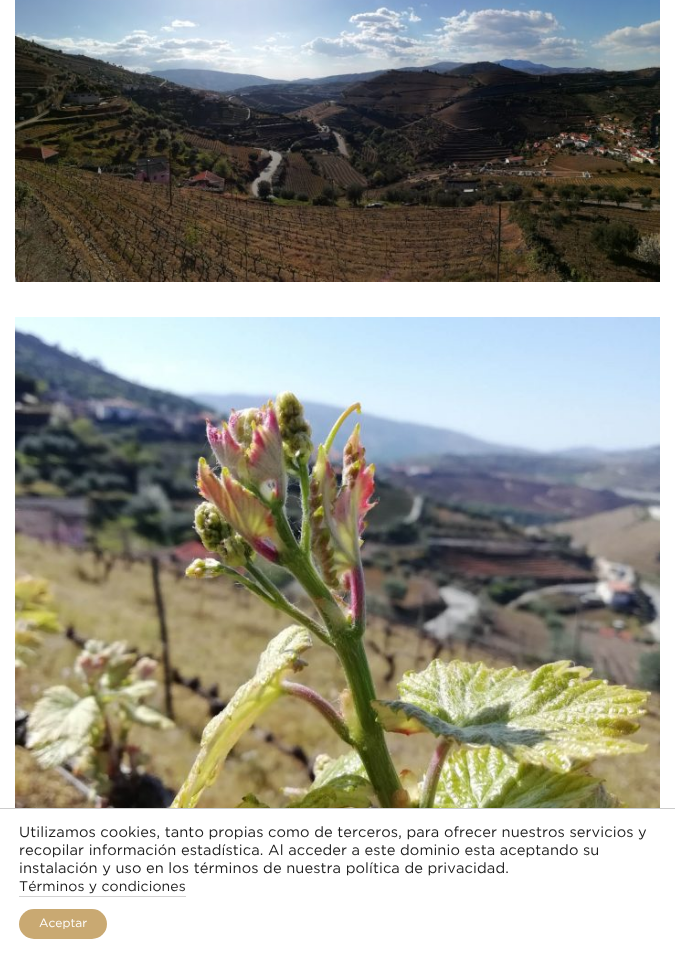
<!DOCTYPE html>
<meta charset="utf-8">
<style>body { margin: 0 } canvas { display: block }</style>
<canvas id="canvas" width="675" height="957"></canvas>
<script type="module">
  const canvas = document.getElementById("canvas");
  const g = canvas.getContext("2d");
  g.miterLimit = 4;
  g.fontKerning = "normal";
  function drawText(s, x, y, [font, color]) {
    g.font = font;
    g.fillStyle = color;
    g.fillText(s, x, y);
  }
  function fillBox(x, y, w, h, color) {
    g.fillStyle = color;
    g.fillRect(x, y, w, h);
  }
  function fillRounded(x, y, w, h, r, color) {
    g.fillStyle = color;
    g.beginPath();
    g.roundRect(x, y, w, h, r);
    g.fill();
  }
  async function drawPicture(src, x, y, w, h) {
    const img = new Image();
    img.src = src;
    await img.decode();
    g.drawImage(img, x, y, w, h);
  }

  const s1 = ["14.65px Gotham", "#202020"];
  const s2 = ["14px Gotham", "#202020"];
  const s3 = ["12px Gotham", "#FFFFFF"];

  fillBox(0, 0, 675, 957, "#FFFFFF");
  await drawPicture("pic1.png", 15, 0, 645, 282);
  await drawPicture("pic2.png", 15, 317, 645, 491);
  fillBox(0, 808, 675, 1, "#CCCCCC");
  g.letterSpacing = "0.1px";
  drawText("Utilizamos cookies, tanto propias como de terceros, para ofrecer nuestros servicios y", 19, 837, s1);
  drawText("recopilar información estadística. Al acceder a este dominio esta aceptando su", 19, 855, s1);
  drawText("instalación y uso en los términos de nuestra política de privacidad.", 19, 873, s1);
  drawText("Términos y condiciones", 19, 891, s2);
  fillBox(19, 896, 167, 1, "#D2D2D2");
  fillRounded(19, 909, 88, 30, 15, "#C9A972");
  g.letterSpacing = "0px";
  drawText("Aceptar", 39, 927, s3);
</script>
